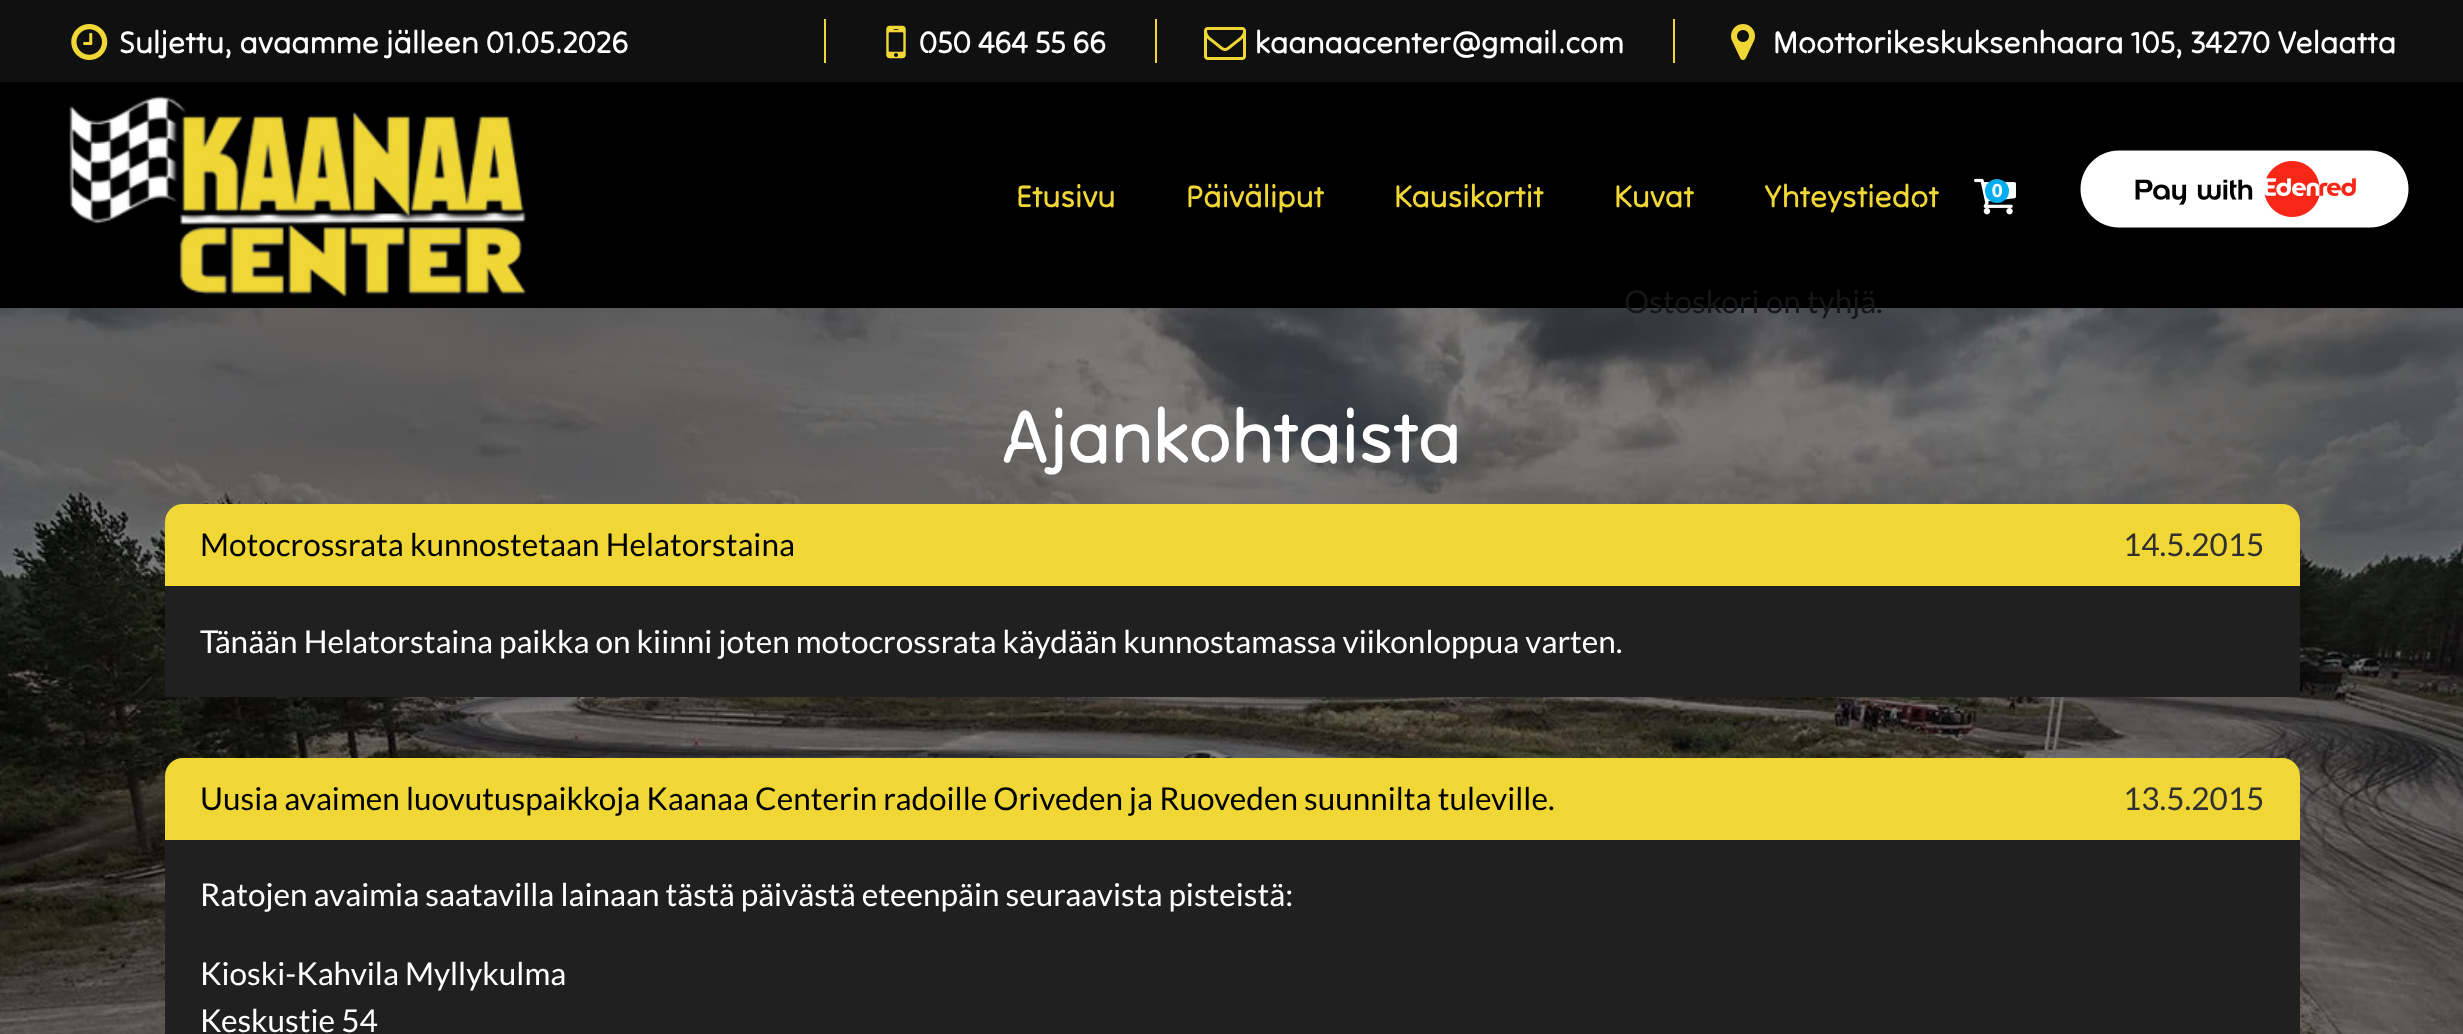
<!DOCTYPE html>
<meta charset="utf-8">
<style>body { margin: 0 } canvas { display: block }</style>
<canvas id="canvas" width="2463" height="1034"></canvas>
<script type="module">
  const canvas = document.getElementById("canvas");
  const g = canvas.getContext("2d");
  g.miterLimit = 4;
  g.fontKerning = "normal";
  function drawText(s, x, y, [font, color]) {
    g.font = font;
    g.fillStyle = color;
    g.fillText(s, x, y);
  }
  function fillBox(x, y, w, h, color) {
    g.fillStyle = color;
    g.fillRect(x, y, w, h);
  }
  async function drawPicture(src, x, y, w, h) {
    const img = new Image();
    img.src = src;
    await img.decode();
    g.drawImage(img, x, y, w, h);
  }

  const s1 = ["31.5px Tilt Neon", "#FFFFFF"];
  const s2 = ["31.5px Tilt Neon", "#F0D735"];
  const s3 = ["900 18px Lato", "#FFFFFF"];
  const s4 = ["31.5px Lato", "#141617"];
  const s5 = ["74.5px Tilt Neon", "#FFFFFF"];
  const s6 = ["31.5px Lato", "#000000"];
  const s7 = ["31.5px Lato", "#303030"];
  const s8 = ["31.5px Lato", "#FFFFFF"];

  fillBox(0, 0, 2463, 1034, "#101010");
  await drawPicture("pic1.png", 71, 24, 37, 36);
  drawText("Suljettu, avaamme jälleen 01.05.2026", 119, 53, s1);
  fillBox(824, 19, 2, 44, "#F0D735");
  await drawPicture("pic2.png", 886, 25, 20, 34);
  drawText("050 464 55 66", 919, 53, s1);
  fillBox(1155, 19, 2, 44, "#F0D735");
  await drawPicture("pic3.png", 1204, 27, 42, 33);
  drawText("kaanaacenter@gmail.com", 1255, 53, s1);
  fillBox(1673, 19, 2, 44, "#F0D735");
  await drawPicture("pic4.png", 1731, 24, 24, 36);
  drawText("Moottorikeskuksenhaara 105, 34270 Velaatta", 1773, 53, s1);
  fillBox(0, 82, 2463, 226, "#000000");
  await drawPicture("pic5.png", 69, 96, 457, 202);
  drawText("Etusivu", 1016, 207, s2);
  drawText("Päiväliput", 1186, 207, s2);
  drawText("Kausikortit", 1394, 207, s2);
  drawText("Kuvat", 1614, 207, s2);
  drawText("Yhteystiedot", 1764, 207, s2);
  await drawPicture("pic6.png", 2080, 150, 329, 78);
  await drawPicture("pic7.png", 1974, 178, 42, 37);
  g.fillStyle = "#00ADEF";
  g.beginPath();
  g.arc(1997, 191, 12, 0, Math.PI * 2);
  g.fill();
  drawText("0", 1992, 197, s3);
  await drawPicture("pic8.png", 0, 308, 2463, 726);
  drawText("Ostoskori on tyhjä.", 1624, 313, s4);
  drawText("Ajankohtaista", 1001, 462, s5);
  g.fillStyle = "#F0D735";
  g.beginPath();
  g.roundRect(165, 504, 2135, 82, [18, 18, 0, 0]);
  g.fill();
  drawText("Motocrossrata kunnostetaan Helatorstaina", 200, 556, s6);
  drawText("14.5.2015", 2123, 556, s7);
  fillBox(165, 586, 2135, 111, "#202020");
  drawText("Tänään Helatorstaina paikka on kiinni joten motocrossrata käydään kunnostamassa viikonloppua varten.", 200, 653, s8);
  g.fillStyle = "#F0D735";
  g.beginPath();
  g.roundRect(165, 758, 2135, 82, [18, 18, 0, 0]);
  g.fill();
  drawText("Uusia avaimen luovutuspaikkoja Kaanaa Centerin radoille Oriveden ja Ruoveden suunnilta tuleville.", 200, 810, s6);
  drawText("13.5.2015", 2123, 810, s7);
  fillBox(165, 840, 2135, 194, "#202020");
  drawText("Ratojen avaimia saatavilla lainaan tästä päivästä eteenpäin seuraavista pisteistä:", 200, 906, s8);
  drawText("Kioski-Kahvila Myllykulma", 200, 985, s8);
  drawText("Keskustie 54", 200, 1032, s8);
</script>
